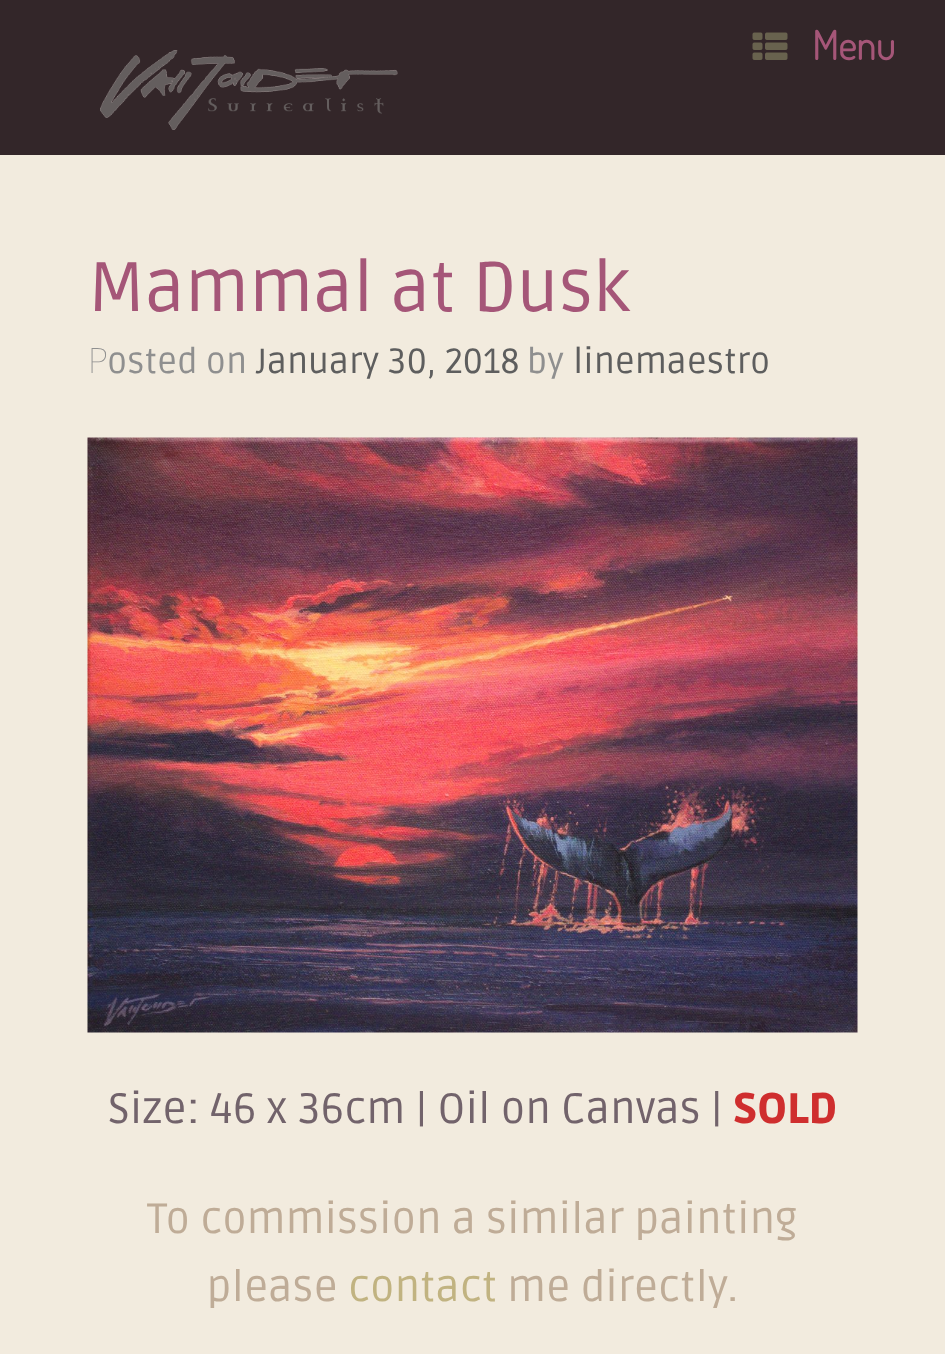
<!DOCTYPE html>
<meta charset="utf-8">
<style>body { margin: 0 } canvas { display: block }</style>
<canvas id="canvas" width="945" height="1354"></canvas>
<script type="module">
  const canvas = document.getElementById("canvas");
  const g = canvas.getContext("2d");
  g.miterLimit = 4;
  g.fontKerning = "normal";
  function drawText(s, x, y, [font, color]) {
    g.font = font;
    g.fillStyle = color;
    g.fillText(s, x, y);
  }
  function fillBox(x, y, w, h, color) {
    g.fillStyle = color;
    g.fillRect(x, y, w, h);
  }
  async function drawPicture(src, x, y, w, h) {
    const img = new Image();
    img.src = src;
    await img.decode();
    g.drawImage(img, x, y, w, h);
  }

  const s1 = ["bold 40px Dosis", "#A55678"];
  const s2 = ["70px Ruda", "#A55678"];
  const s3 = ["100 35px Noto Sans", "#8F8F8F"];
  const s4 = ["35px Ruda", "#8F8F8F"];
  const s5 = ["35px Ruda", "#5E5E5E"];
  const s6 = ["42.5px Ruda", "#72636B"];
  const s7 = ["900 42.5px Ruda", "#CF2E2E"];
  const s8 = ["42.5px Ruda", "#BFAC97"];
  const s9 = ["42.5px Ruda", "#C1B381"];

  fillBox(0, 0, 945, 1354, "#F2EBDE");
  fillBox(0, 0, 945, 155, "#332629");
  await drawPicture("pic1.png", 752, 32, 36, 28);
  drawText("Menu", 812, 60, s1);
  await drawPicture("pic2.png", 100, 50, 298, 80);
  drawText("Mammal at Dusk", 88, 311, s2);
  drawText("P", 88, 373, s3);
  drawText("osted on", 107, 373, s4);
  drawText("January 30, 2018", 256, 373, s5);
  drawText("by", 527, 373, s4);
  drawText("linemaestro", 573, 373, s5);
  await drawPicture("pic3.png", 87, 437, 771, 596);
  drawText("Size: 46 x 36cm | Oil on Canvas |", 108, 1123, s6);
  drawText("SOLD", 733, 1123, s7);
  drawText("To commission a similar painting", 147, 1233, s8);
  drawText("please", 207, 1301, s8);
  drawText("contact", 348, 1301, s9);
  drawText("me directly.", 507, 1301, s8);
</script>
